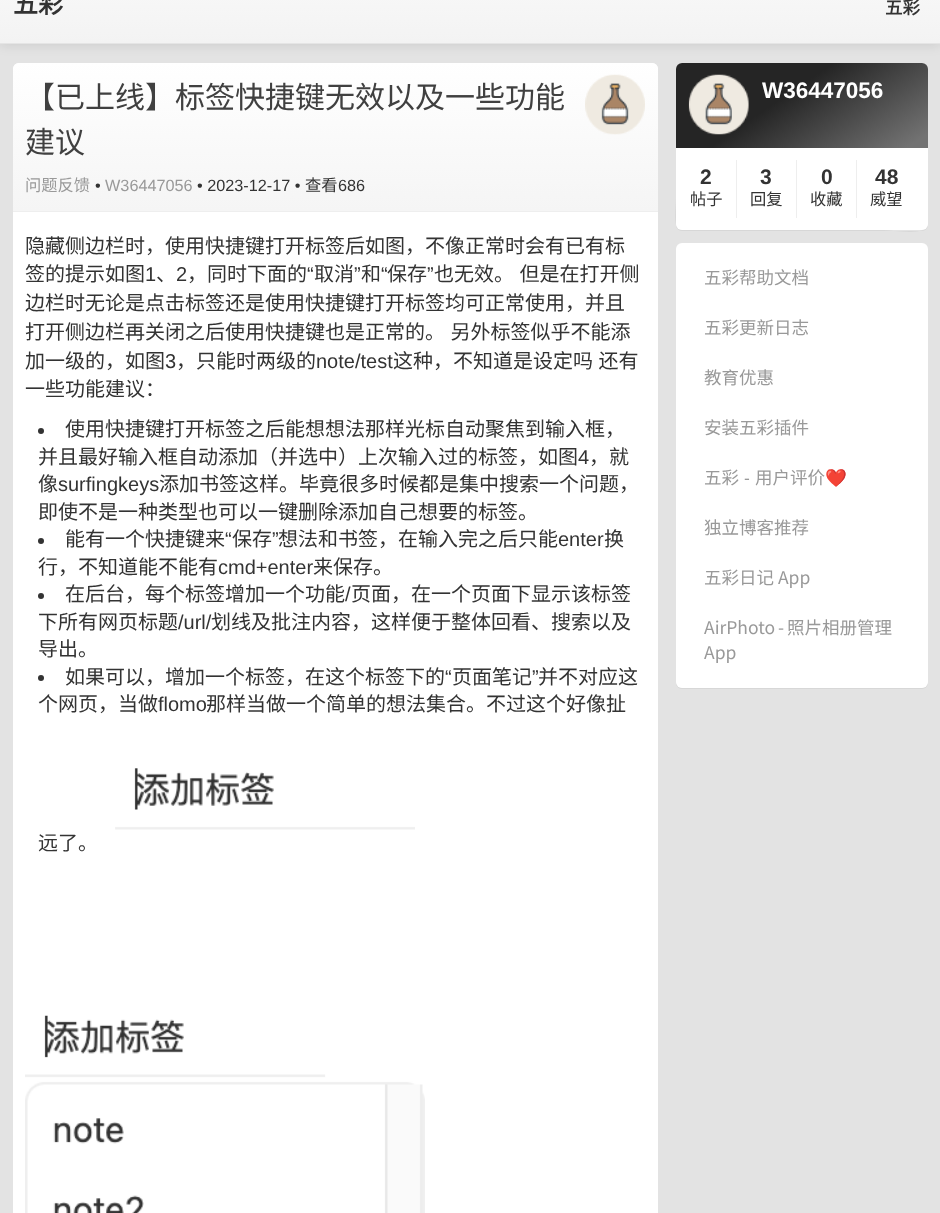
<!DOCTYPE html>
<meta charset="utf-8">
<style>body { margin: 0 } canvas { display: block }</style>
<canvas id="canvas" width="940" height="1213"></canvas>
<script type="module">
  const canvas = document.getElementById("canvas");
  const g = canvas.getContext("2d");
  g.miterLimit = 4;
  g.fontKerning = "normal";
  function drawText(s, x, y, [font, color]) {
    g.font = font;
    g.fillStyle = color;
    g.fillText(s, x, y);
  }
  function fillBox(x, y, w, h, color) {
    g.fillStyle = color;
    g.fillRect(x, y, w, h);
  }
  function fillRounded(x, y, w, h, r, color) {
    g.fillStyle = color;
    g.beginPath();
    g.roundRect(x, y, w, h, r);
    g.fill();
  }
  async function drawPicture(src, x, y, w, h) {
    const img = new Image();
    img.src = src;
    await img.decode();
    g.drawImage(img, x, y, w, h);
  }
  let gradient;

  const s1 = ["bold 25px Noto Sans CJK SC", "#333333"];
  const s2 = ["bold 17.5px Noto Sans CJK SC", "#333333"];
  const s3 = ["30px Noto Sans CJK SC", "#404040"];
  const s4 = ["16.25px Noto Sans CJK SC", "#999999"];
  const s5 = ["16.25px Liberation Sans", "#333333"];
  const s6 = ["16.25px Liberation Sans", "#999999"];
  const s7 = ["16.25px Noto Sans CJK SC", "#333333"];
  const s8 = ["20px Noto Sans CJK SC", "#333333"];
  const s9 = ["20px Liberation Sans", "#333333"];
  const s10 = ["bold 22.5px Liberation Sans", "#FFFFFF"];
  const s11 = ["bold 21px Liberation Sans", "#333333"];
  const s12 = ["17.5px Noto Sans CJK SC", "#999999"];
  const s13 = ["17.5px Liberation Sans", "#999999"];
  const s14 = ["17.5px Noto Color Emoji", "#999999"];

  fillBox(0, 0, 940, 1213, "#E3E3E3");
  fillRounded(13, 63, 645, 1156, 6, "#FFFFFF");
  gradient = g.createLinearGradient(335, 62, 335, 211);
  gradient.addColorStop(0, "#FFFFFF");
  gradient.addColorStop(1, "#F5F5F5");
  g.fillStyle = gradient;
  g.beginPath();
  g.roundRect(13, 63, 645, 148, [6, 6, 0, 0]);
  g.fill();
  g.fillStyle = "#D7D7D7";
  g.beginPath();
  g.moveTo(676, 68);
  g.lineTo(676, 225);
  g.bezierCurveTo(676, 228, 679, 231, 682, 231);
  g.lineTo(922, 231);
  g.bezierCurveTo(925, 231, 928, 228, 928, 225);
  g.lineTo(928, 70);
  g.lineTo(927, 67);
  g.lineTo(928, 224);
  g.bezierCurveTo(927, 237, 893, 230, 881, 230);
  g.lineTo(682, 230);
  g.bezierCurveTo(672, 230, 676, 210, 676, 198);
  g.closePath();
  g.fill();
  fillRounded(676, 63, 252, 167, 6, "#FFFFFF");
  gradient = g.createLinearGradient(861, 192, 743, 18);
  gradient.addColorStop(0.05, "#727272");
  gradient.addColorStop(0.58, "#252525");
  g.fillStyle = gradient;
  g.beginPath();
  g.roundRect(676, 63, 252, 85, [6, 6, 0, 0]);
  g.fill();
  g.fillStyle = "rgba(0, 0, 0, 0.1)";
  g.filter = "blur(6px)";
  g.beginPath();
  g.rect(0, -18, 940, 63);
  g.fill();
  g.filter = "none";
  gradient = g.createLinearGradient(470, -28, 470, 43);
  gradient.addColorStop(0, "#F9F9F9");
  gradient.addColorStop(1, "#F3F3F3");
  g.fillStyle = gradient;
  g.fillRect(0, 0, 940, 43);
  fillBox(0, 43, 940, 1, "#E5E5E5");
  drawText("五彩", 13, 13, s1);
  drawText("五彩", 885, 14, s2);
  fillBox(13, 211, 645, 1, "#EEEEEE");
  drawText("【已上线】标签快捷键无效以及一些功能", 25, 108, s3);
  drawText("建议", 25, 153, s3);
  drawText("问题反馈", 25, 191, s4);
  drawText("•", 95, 191, s5);
  drawText("W36447056", 105, 191, s6);
  drawText("• 2023-12-17 •", 197, 191, s5);
  drawText("查看", 305, 191, s7);
  drawText("686", 338, 191, s5);
  await drawPicture("pic1.png", 585, 74, 60, 61);
  drawText("隐藏侧边栏时，使用快捷键打开标签后如图，不像正常时会有已有标", 25, 253, s8);
  drawText("签的提示如图", 25, 281, s8);
  drawText("1", 145, 281, s9);
  drawText("2", 176, 281, s9);
  drawText("，同时下面的", 187, 281, s8);
  drawText("“", 307, 281, s9);
  drawText("取消", 314, 281, s8);
  drawText("”", 354, 281, s9);
  drawText("和", 361, 281, s8);
  drawText("“", 381, 281, s9);
  drawText("保存", 387, 281, s8);
  drawText("”", 427, 281, s9);
  g.wordSpacing = "1px";
  drawText("也无效。 但是在打开侧", 434, 281, s8);
  g.wordSpacing = "0px";
  drawText("、", 156, 281, s8);
  drawText("边栏时无论是点击标签还是使用快捷键打开标签均可正常使用，并且", 25, 310, s8);
  g.wordSpacing = "1px";
  drawText("打开侧边栏再关闭之后使用快捷键也是正常的。 另外标签似乎不能添", 25, 339, s8);
  g.wordSpacing = "0px";
  drawText("加一级的，如图", 25, 368, s8);
  drawText("3", 165, 368, s9);
  drawText("，只能时两级的", 176, 368, s8);
  drawText("note/test", 316, 368, s9);
  g.wordSpacing = "1px";
  drawText("这种，不知道是设定吗 还有", 393, 368, s8);
  g.wordSpacing = "0px";
  drawText("一些功能建议：", 25, 396, s8);
  g.beginPath();
  g.arc(41, 431, 3, 0, Math.PI * 2);
  g.fill();
  drawText("使用快捷键打开标签之后能想想法那样光标自动聚焦到输入框，", 65, 436, s8);
  drawText("并且最好输入框自动添加（并选中）上次输入过的标签，如图", 38, 464, s8);
  drawText("4", 578, 464, s9);
  drawText("，就", 589, 464, s8);
  drawText("像", 38, 491, s8);
  drawText("surfingkeys", 58, 491, s9);
  drawText("添加书签这样。毕竟很多时候都是集中搜索一个问题，", 159, 491, s8);
  drawText("即使不是一种类型也可以一键删除添加自己想要的标签。", 38, 519, s8);
  g.beginPath();
  g.arc(41, 541, 3, 0, Math.PI * 2);
  g.fill();
  drawText("能有一个快捷键来", 65, 546, s8);
  drawText("“", 225, 546, s9);
  drawText("保存", 232, 546, s8);
  drawText("”", 272, 546, s9);
  drawText("想法和书签，在输入完之后只能", 278, 546, s8);
  drawText("enter", 558, 546, s9);
  drawText("换", 604, 546, s8);
  drawText("行，不知道能不能有", 38, 574, s8);
  drawText("cmd+enter", 218, 574, s9);
  drawText("来保存。", 313, 574, s8);
  g.beginPath();
  g.arc(41, 596, 3, 0, Math.PI * 2);
  g.fill();
  drawText("在后台，每个标签增加一个功能", 65, 601, s8);
  drawText("/", 345, 601, s9);
  drawText("页面，在一个页面下显示该标签", 351, 601, s8);
  drawText("下所有网页标题", 38, 629, s8);
  drawText("/url/", 178, 629, s9);
  drawText("划线及批注内容，这样便于整体回看、搜索以及", 211, 629, s8);
  drawText("导出。", 38, 656, s8);
  drawText("如果可以，增加一个标签，在这个标签下的", 65, 684, s8);
  drawText("“", 445, 684, s9);
  drawText("页面笔记", 452, 684, s8);
  drawText("”", 532, 684, s9);
  drawText("并不对应这", 538, 684, s8);
  g.beginPath();
  g.arc(41, 678, 3, 0, Math.PI * 2);
  g.fill();
  drawText("个网页，当做", 38, 711, s8);
  drawText("flomo", 158, 711, s9);
  drawText("那样当做一个简单的想法集合。不过这个好像扯", 206, 711, s8);
  await drawPicture("pic2.png", 115, 768, 300, 62);
  drawText("远了。", 38, 850, s8);
  await drawPicture("pic3.png", 25, 1015, 400, 198);
  await drawPicture("pic4.png", 688, 74, 61, 61);
  drawText("W36447056", 762, 98, s10);
  fillBox(736, 160, 1, 58, "#EEEEEE");
  drawText("2", 700, 184, s11);
  drawText("帖子", 690, 205, s7);
  fillBox(796, 160, 1, 58, "#EEEEEE");
  drawText("3", 760, 184, s11);
  drawText("回复", 750, 205, s7);
  fillBox(856, 160, 1, 58, "#EEEEEE");
  drawText("0", 821, 184, s11);
  drawText("收藏", 810, 205, s7);
  drawText("48", 875, 184, s11);
  drawText("威望", 870, 205, s7);
  g.fillStyle = "#D7D7D7";
  g.beginPath();
  g.moveTo(676, 248);
  g.lineTo(676, 683);
  g.bezierCurveTo(676, 686, 679, 689, 682, 689);
  g.lineTo(922, 689);
  g.bezierCurveTo(925, 689, 928, 686, 928, 683);
  g.lineTo(928, 250);
  g.lineTo(927, 247);
  g.lineTo(928, 681);
  g.bezierCurveTo(928, 685, 925, 688, 921, 688);
  g.lineTo(682, 688);
  g.bezierCurveTo(679, 688, 676, 685, 676, 681);
  g.closePath();
  g.fill();
  fillRounded(676, 243, 252, 445, 6, "#FFFFFF");
  drawText("五彩帮助文档", 704, 284, s12);
  drawText("五彩更新日志", 704, 334, s12);
  drawText("教育优惠", 704, 384, s12);
  drawText("安装五彩插件", 704, 434, s12);
  drawText("五彩", 704, 484, s12);
  drawText("-", 744, 484, s13);
  drawText("用户评价", 755, 484, s12);
  drawText("❤️", 825, 484, s14);
  drawText("独立博客推荐", 704, 534, s12);
  drawText("五彩日记 App", 704, 584, s12);
  g.wordSpacing = "-1px";
  drawText("AirPhoto - 照片相册管理", 704, 634, s12);
  g.wordSpacing = "0px";
  drawText("App", 704, 659, s12);
</script>
